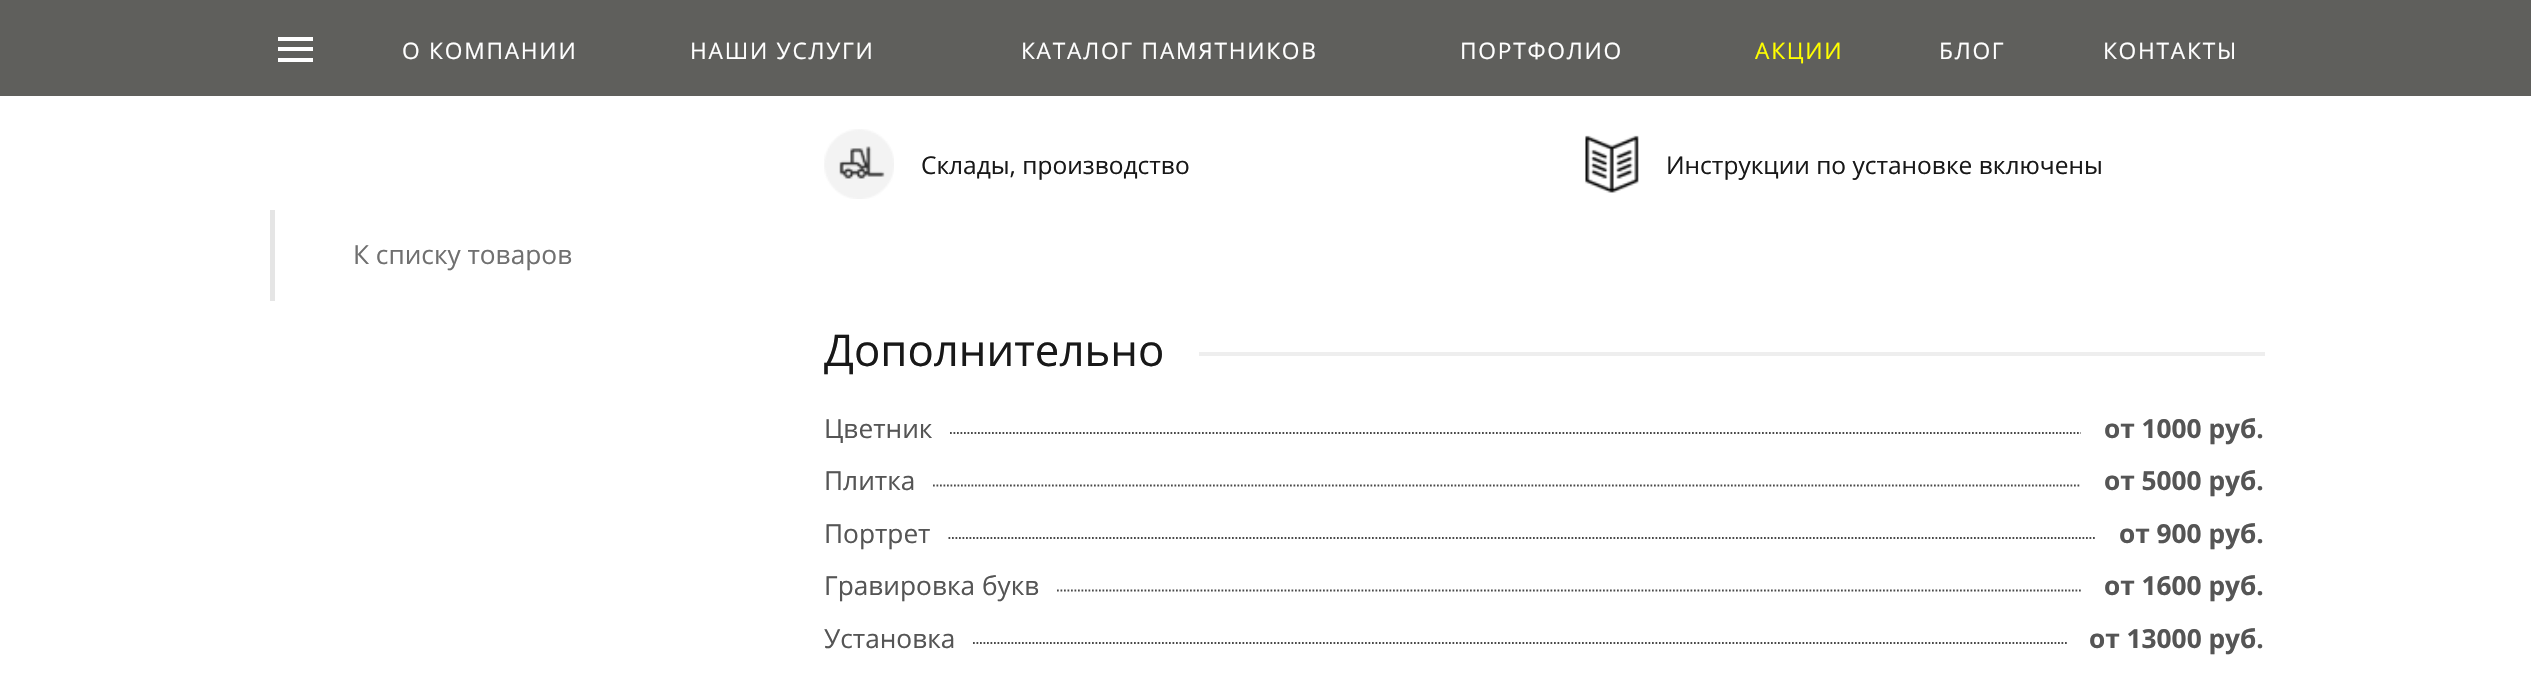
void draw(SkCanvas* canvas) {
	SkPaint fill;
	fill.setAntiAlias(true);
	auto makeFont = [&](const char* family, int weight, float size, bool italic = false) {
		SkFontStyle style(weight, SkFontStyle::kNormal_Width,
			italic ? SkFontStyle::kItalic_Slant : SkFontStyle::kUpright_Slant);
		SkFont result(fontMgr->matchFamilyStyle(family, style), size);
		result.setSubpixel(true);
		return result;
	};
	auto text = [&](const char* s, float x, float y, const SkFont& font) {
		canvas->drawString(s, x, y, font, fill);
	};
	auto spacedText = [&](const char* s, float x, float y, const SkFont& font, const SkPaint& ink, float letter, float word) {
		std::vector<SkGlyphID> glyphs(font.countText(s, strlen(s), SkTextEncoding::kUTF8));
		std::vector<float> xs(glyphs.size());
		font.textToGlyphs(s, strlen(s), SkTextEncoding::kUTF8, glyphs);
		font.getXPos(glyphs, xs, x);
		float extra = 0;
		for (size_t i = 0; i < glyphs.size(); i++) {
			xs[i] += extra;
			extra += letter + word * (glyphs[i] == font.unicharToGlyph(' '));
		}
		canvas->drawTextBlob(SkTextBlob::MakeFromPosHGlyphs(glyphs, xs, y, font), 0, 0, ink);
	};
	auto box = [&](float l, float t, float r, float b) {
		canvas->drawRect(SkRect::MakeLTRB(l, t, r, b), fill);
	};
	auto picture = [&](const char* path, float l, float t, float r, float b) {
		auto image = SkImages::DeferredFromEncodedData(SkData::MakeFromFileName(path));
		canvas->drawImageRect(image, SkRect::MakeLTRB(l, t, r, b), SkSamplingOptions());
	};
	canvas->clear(0xFFFFFFFF);
	fill.setColor(0xFF5F5F5C);
	box(0, 0, 2531, 96);
	fill.setColor(0xFFFFFFFF);
	box(278, 37, 313, 41);
	box(278, 47, 313, 51);
	box(278, 58, 313, 62);
	fill.setColor(0xFFE5E5E5);
	box(270, 210, 275, 301);
	picture("image0.png", 824, 129, 894, 199);
	picture("image1.png", 1585, 135, 1639, 193);
	fill.setColor(0xFFEEEEEE);
	box(1199, 352, 2265, 356);
	fill.setStyle(SkPaint::kStroke_Style);
	fill.setStrokeWidth(1.8f);
	fill.setColor(0xFF494949);
	fill.setPathEffect(SkDashPathEffect::Make({{1.75f, 1.75f}}, 0));
	canvas->drawPath(SkPathBuilder().moveTo(950, 433).lineTo(2081, 433).detach(), fill);
	fill.setPathEffect(nullptr);
	fill.setPathEffect(SkDashPathEffect::Make({{1.75f, 1.75f}}, 0));
	canvas->drawPath(SkPathBuilder().moveTo(933, 485.5f).lineTo(2081, 485.5f).detach(), fill);
	fill.setPathEffect(nullptr);
	fill.setPathEffect(SkDashPathEffect::Make({{1.75f, 1.75f}}, 0));
	canvas->drawPath(SkPathBuilder().moveTo(948.5f, 538).lineTo(2096.5f, 538).detach(), fill);
	fill.setPathEffect(nullptr);
	fill.setPathEffect(SkDashPathEffect::Make({{1.75f, 1.75f}}, 0));
	canvas->drawPath(SkPathBuilder().moveTo(1057, 590.5f).lineTo(2081, 590.5f).detach(), fill);
	fill.setPathEffect(nullptr);
	fill.setPathEffect(SkDashPathEffect::Make({{1.75f, 1.75f}}, 0));
	canvas->drawPath(SkPathBuilder().moveTo(973, 643).lineTo(2067, 643).detach(), fill);
	fill.setPathEffect(nullptr);
	auto font1 = makeFont("Open Sans", 400, 22.75f);
	fill.setStyle(SkPaint::kFill_Style);
	fill.setColor(0xFFFFFFFF);
	spacedText("О КОМПАНИИ", 402, 59, font1, fill, 1.75f, 0);
	spacedText("НАШИ УСЛУГИ", 690, 59, font1, fill, 1.75f, 0);
	spacedText("КАТАЛОГ ПАМЯТНИКОВ", 1021, 59, font1, fill, 1.75f, 0);
	spacedText("ПОРТФОЛИО", 1460, 59, font1, fill, 1.75f, 0);
	fill.setColor(0xFFFFFF00);
	spacedText("АКЦИИ", 1755, 59, font1, fill, 1.75f, 0);
	fill.setColor(0xFFFFFFFF);
	spacedText("БЛОГ", 1939, 59, font1, fill, 1.75f, 0);
	spacedText("КОНТАКТЫ", 2103, 59, font1, fill, 1.75f, 0);
	auto font2 = makeFont("Open Sans", 400, 26.25f);
	fill.setColor(0xFF707070);
	text("К списку товаров", 353, 264, font2);
	auto font3 = makeFont("Open Sans", 400, 24.5f);
	fill.setColor(0xFF181818);
	text("Склады, производство", 921, 174, font3);
	text("Инструкции по установке включены", 1666, 174, font3);
	auto font4 = makeFont("Open Sans", 400, 43.75f);
	text("Дополнительно", 824, 366, font4);
	fill.setColor(0xFF555555);
	text("Цветник", 824, 438, font2);
	auto font5 = makeFont("Open Sans", 700, 26.25f);
	text("от 1000 руб.", 2104, 438, font5);
	text("Плитка", 824, 490, font2);
	text("от 5000 руб.", 2104, 490, font5);
	text("Портрет", 824, 543, font2);
	text("от 900 руб.", 2119, 543, font5);
	text("Гравировка букв", 824, 595, font2);
	text("от 1600 руб.", 2104, 595, font5);
	text("Установка", 824, 648, font2);
	text("от 13000 руб.", 2089, 648, font5);
}
